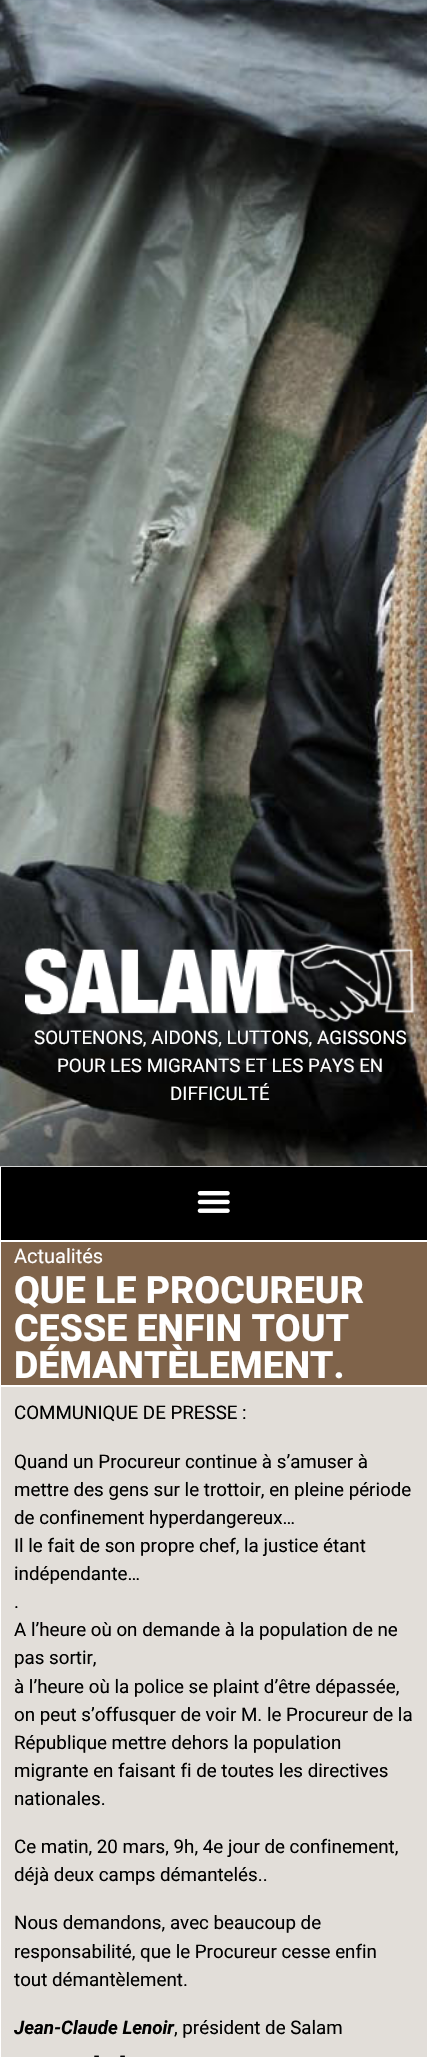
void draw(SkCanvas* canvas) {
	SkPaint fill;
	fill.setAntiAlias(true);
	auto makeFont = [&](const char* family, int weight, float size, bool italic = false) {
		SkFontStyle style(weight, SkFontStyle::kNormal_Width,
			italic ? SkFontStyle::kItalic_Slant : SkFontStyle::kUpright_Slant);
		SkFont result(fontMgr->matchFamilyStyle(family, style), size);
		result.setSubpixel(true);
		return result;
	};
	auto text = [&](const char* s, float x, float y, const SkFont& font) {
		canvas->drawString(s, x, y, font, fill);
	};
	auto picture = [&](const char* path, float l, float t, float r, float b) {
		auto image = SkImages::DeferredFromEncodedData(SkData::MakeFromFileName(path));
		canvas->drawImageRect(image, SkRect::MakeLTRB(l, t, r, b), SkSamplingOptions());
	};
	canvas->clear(0xFF000000);
	fill.setStyle(SkPaint::kStroke_Style);
	fill.setStrokeWidth(1);
	fill.setColor(0xFFFFFFFF);
	canvas->drawRect(SkRect::MakeLTRB(0.5f, 1166.5f, 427.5f, 1240.5f), fill);
	picture("image0.png", 0, 0, 427, 1167);
	picture("image1.png", 25, 942, 415, 1022);
	picture("image2.png", 197, 1191, 230, 1213);
	fill.setStyle(SkPaint::kFill_Style);
	fill.setColor(0xFF7F634A);
	canvas->drawRect(SkRect::MakeLTRB(0.5f, 1241.5f, 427.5f, 1385.5f), fill);
	fill.setStyle(SkPaint::kStroke_Style);
	fill.setColor(0xFFFFFFFF);
	canvas->drawRect(SkRect::MakeLTRB(0.5f, 1241.5f, 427.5f, 1385.5f), fill);
	fill.setStyle(SkPaint::kFill_Style);
	fill.setColor(0xFFE2DED9);
	canvas->drawRect(SkRect::MakeLTRB(0.5f, 1386.5f, 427.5f, 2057.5f), fill);
	fill.setStyle(SkPaint::kStroke_Style);
	fill.setColor(0xFFFFFFFF);
	canvas->drawRect(SkRect::MakeLTRB(0.5f, 1386.5f, 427.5f, 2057.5f), fill);
	auto font1 = makeFont("Roboto", 400, 18.75f);
	fill.setStyle(SkPaint::kFill_Style);
	text("SOUTENONS, AIDONS, LUTTONS, AGISSONS", 34, 1044, font1);
	text("POUR LES MIGRANTS ET LES PAYS EN", 57, 1072, font1);
	text("DIFFICULTÉ", 170, 1100, font1);
	auto font2 = makeFont("Roboto", 400, 20);
	text("Actualités", 14, 1263, font2);
	auto font3 = makeFont("Roboto", 800, 37.5f);
	text("QUE LE PROCUREUR", 14, 1303, font3);
	text("CESSE ENFIN TOUT", 14, 1341, font3);
	text("DÉMANTÈLEMENT.", 14, 1378, font3);
	fill.setColor(0xFF000000);
	text("COMMUNIQUE DE PRESSE :", 14, 1419, font1);
	text("Quand un Procureur continue à s’amuser à", 14, 1468, font1);
	text("mettre des gens sur le trottoir, en pleine période", 14, 1496, font1);
	text("de confinement hyperdangereux…", 14, 1524, font1);
	text("Il le fait de son propre chef, la justice étant", 14, 1552, font1);
	text("indépendante…", 14, 1580, font1);
	text(".", 14, 1608, font1);
	text("A l’heure où on demande à la population de ne", 14, 1636, font1);
	text("pas sortir,", 14, 1664, font1);
	text("à l’heure où la police se plaint d’être dépassée,", 14, 1693, font1);
	text("on peut s’offusquer de voir M. le Procureur de la", 14, 1721, font1);
	text("République mettre dehors la population", 14, 1749, font1);
	text("migrante en faisant fi de toutes les directives", 14, 1777, font1);
	text("nationales.", 14, 1805, font1);
	text("Ce matin, 20 mars, 9h, 4e jour de confinement,", 14, 1853, font1);
	text("déjà deux camps démantelés..", 14, 1881, font1);
	text("Nous demandons, avec beaucoup de", 14, 1929, font1);
	text("responsabilité, que le Procureur cesse enfin", 14, 1958, font1);
	text("tout démantèlement.", 14, 1986, font1);
	auto font4 = makeFont("Roboto", 700, 18.75f, true);
	text("Jean-Claude Lenoir", 14, 2034, font4);
	text(", président de Salam", 174, 2034, font1);
	text("-", 94, 2062, font1);
	text("-", 120, 2062, font1);
}
